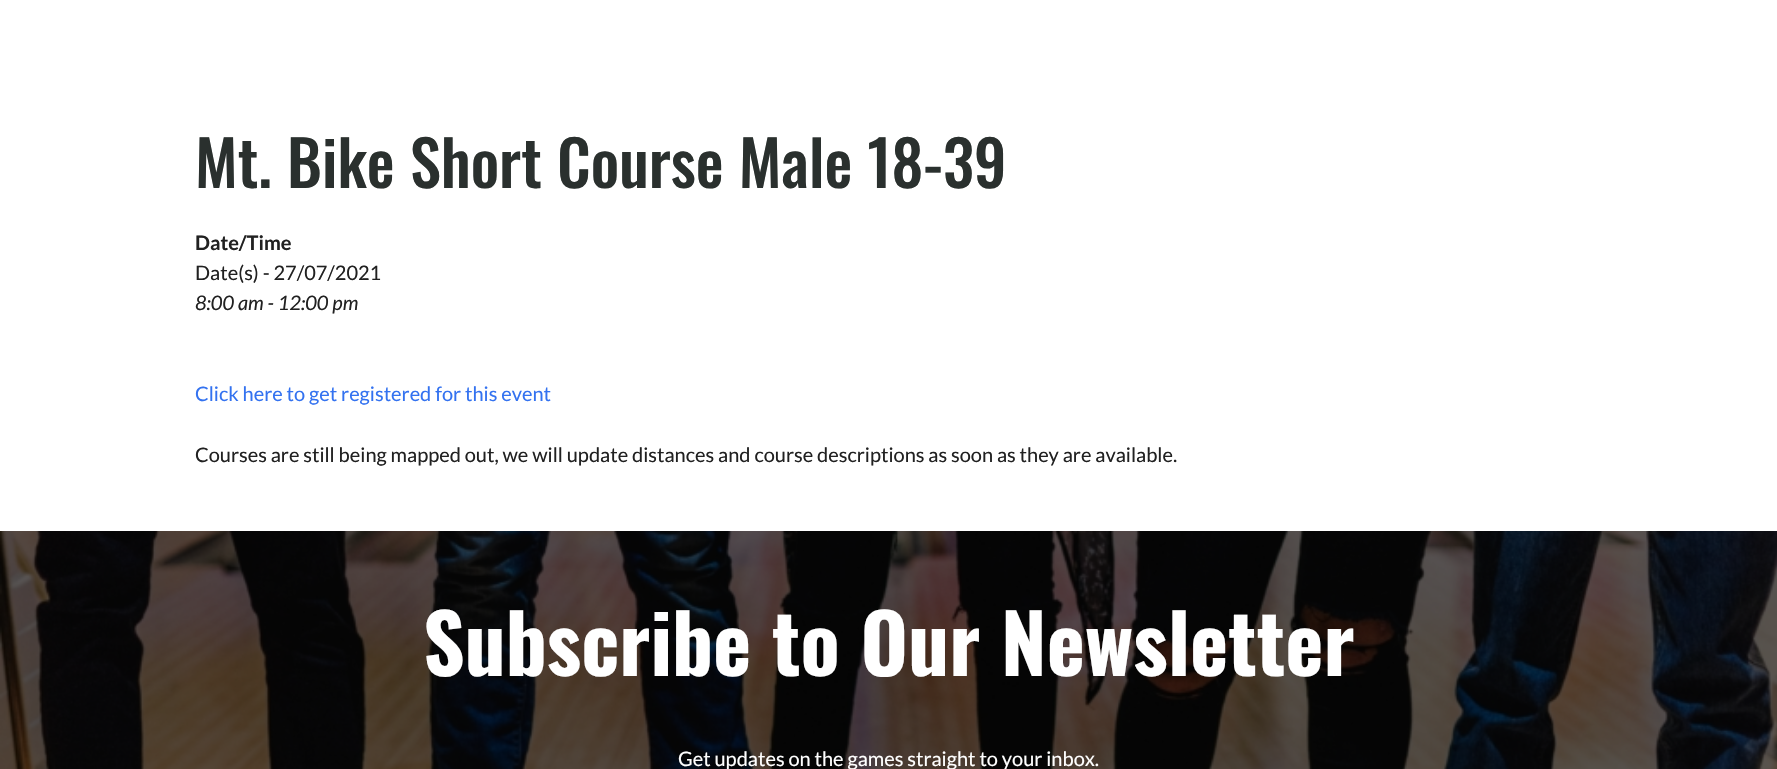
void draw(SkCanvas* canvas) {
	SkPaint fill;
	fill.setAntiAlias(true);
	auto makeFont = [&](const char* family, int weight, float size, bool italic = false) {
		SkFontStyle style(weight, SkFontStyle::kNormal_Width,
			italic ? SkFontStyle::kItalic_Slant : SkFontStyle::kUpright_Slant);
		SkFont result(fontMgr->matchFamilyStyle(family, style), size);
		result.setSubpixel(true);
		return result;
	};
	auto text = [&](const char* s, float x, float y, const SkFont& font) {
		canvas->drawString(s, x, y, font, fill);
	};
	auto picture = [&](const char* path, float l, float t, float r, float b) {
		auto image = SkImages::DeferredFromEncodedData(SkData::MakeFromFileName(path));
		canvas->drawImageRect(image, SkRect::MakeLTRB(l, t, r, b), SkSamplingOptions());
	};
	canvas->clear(0xFFFFFFFF);
	picture("image0.png", 0, 531, 1777, 769);
	auto font1 = makeFont("Oswald", 500, 62.5f);
	fill.setColor(0xFF2A302E);
	text("Mt. Bike Short Course Male 18-39", 195, 188, font1);
	auto font2 = makeFont("Lato", 700, 20);
	fill.setColor(0xFF212121);
	text("Date/Time", 195, 250, font2);
	auto font3 = makeFont("Lato", 400, 20);
	text("Date(s) - 27/07/2021", 195, 280, font3);
	auto font4 = makeFont("Lato", 400, 20, true);
	text("8:00 am - 12:00 pm", 195, 310, font4);
	fill.setColor(0xFF3372F0);
	text("Click here to get registered for this event", 195, 401, font3);
	fill.setColor(0xFF212121);
	text("Courses are still being mapped out, we will update distances and course descriptions as soon as they are available.", 195, 462, font3);
	auto font5 = makeFont("Oswald", 700, 81.25f);
	fill.setColor(0xFFFFFFFF);
	text("Subscribe to Our Newsletter", 423, 676, font5);
	text("Get updates on the games straight to your inbox.", 678, 766, font3);
}
